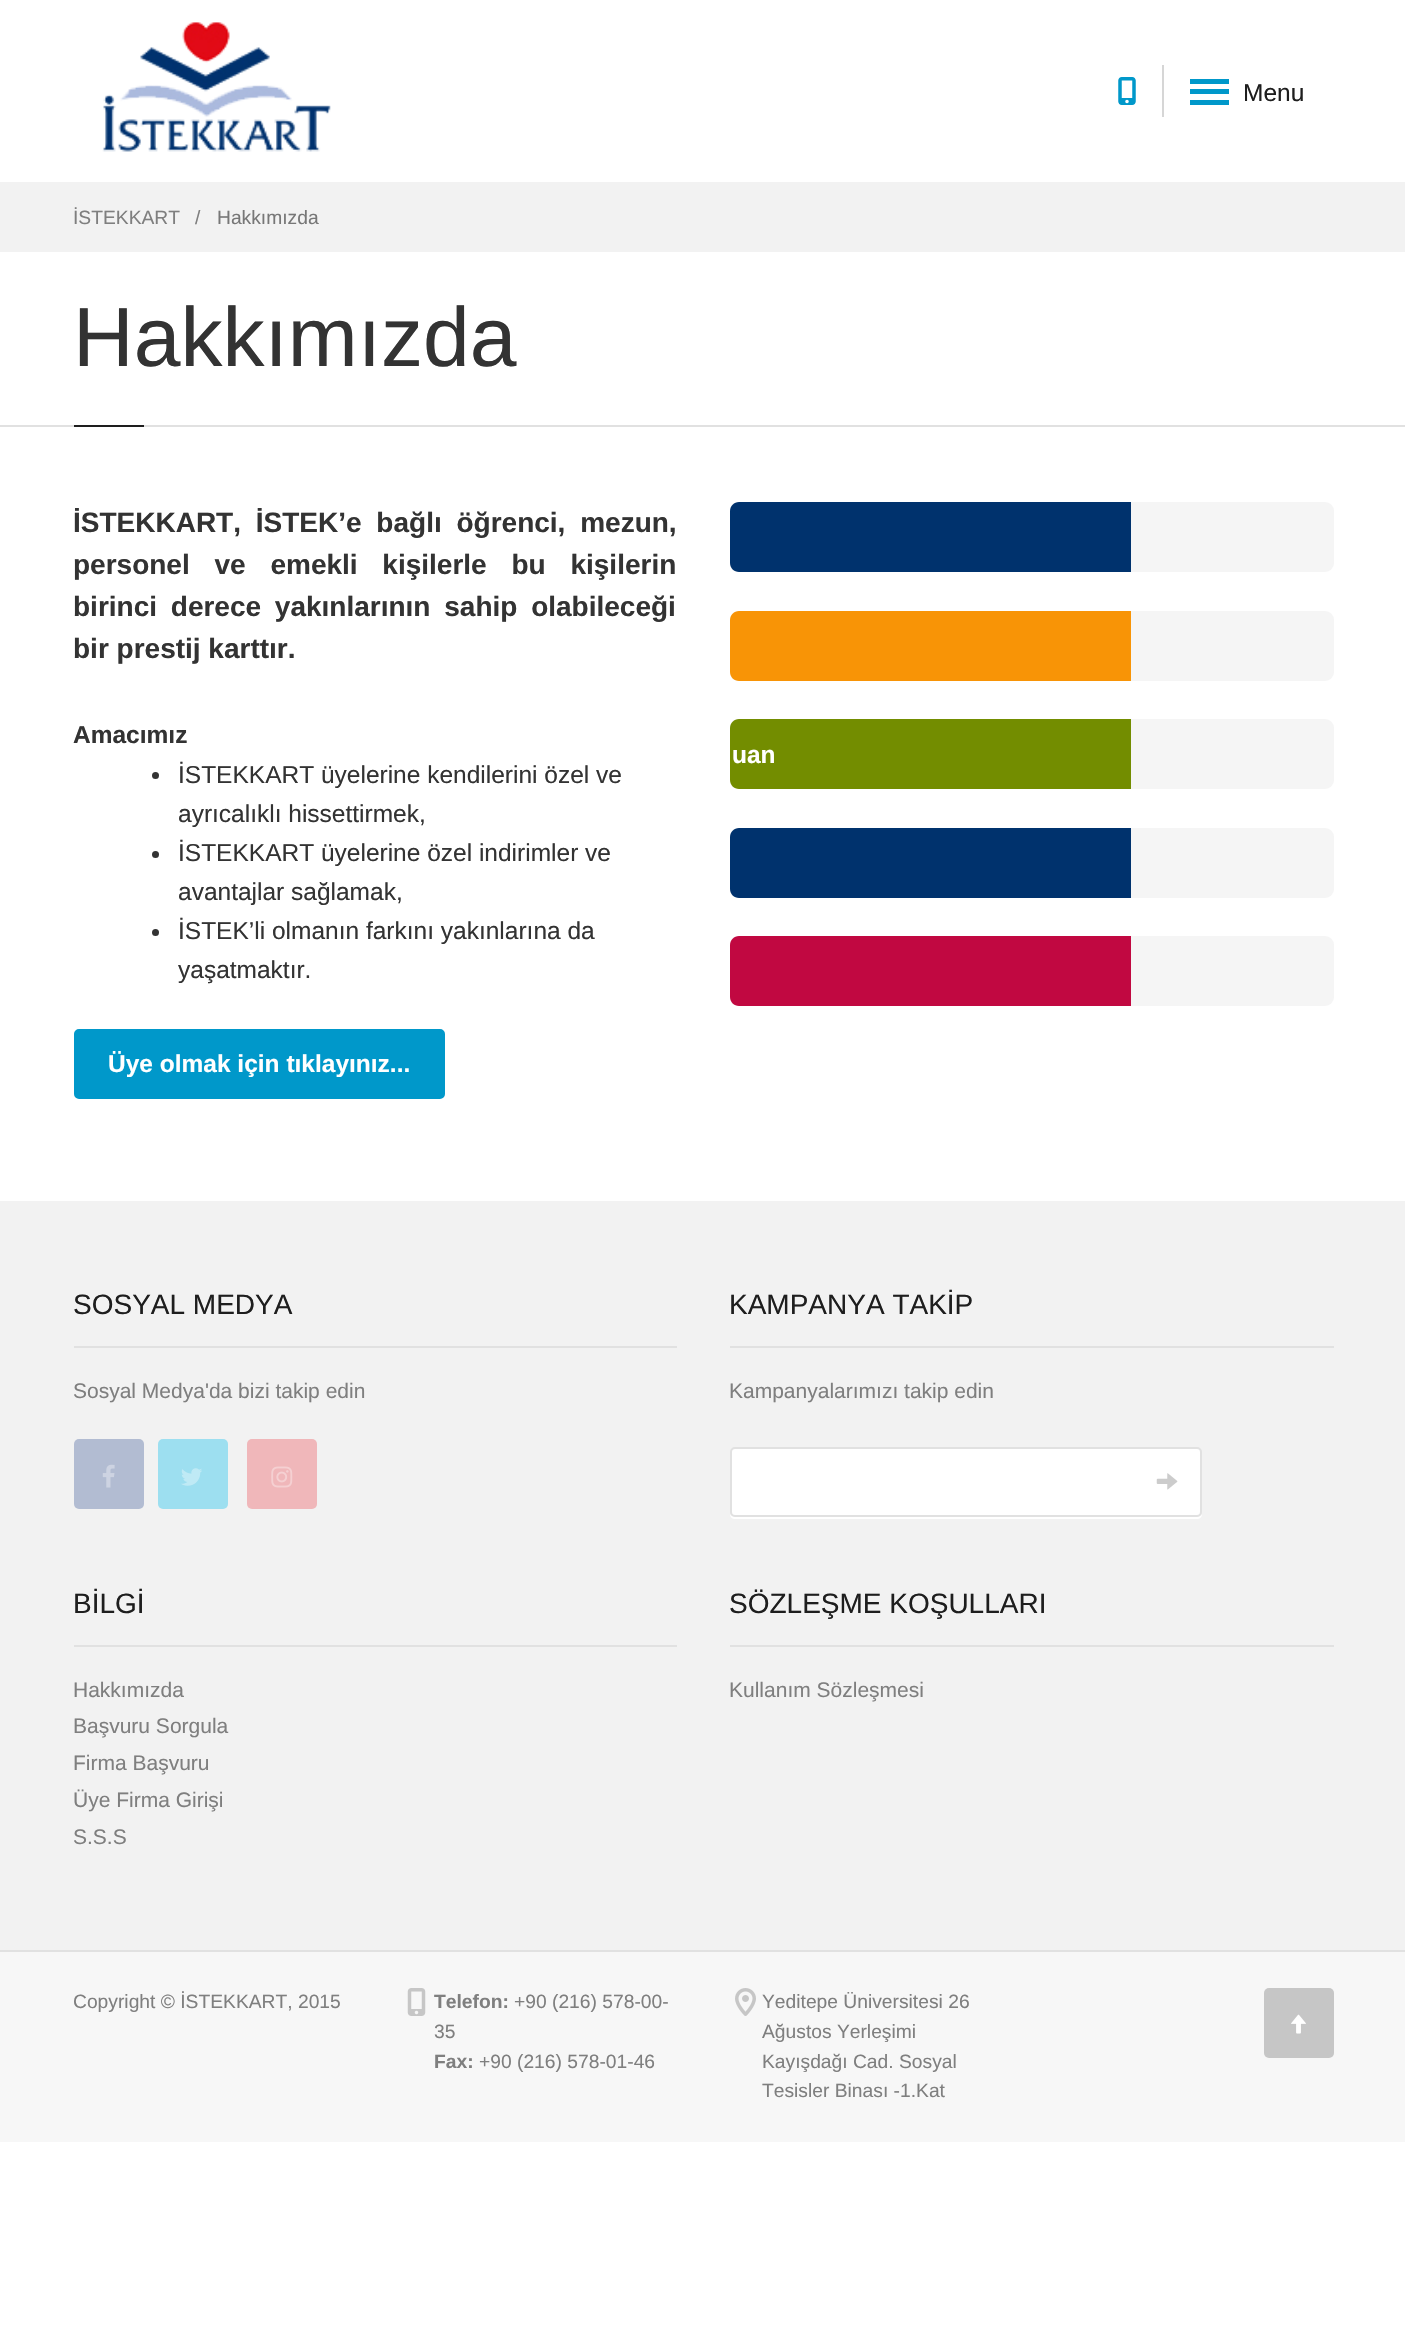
void draw(SkCanvas* canvas) {
	SkPaint fill;
	fill.setAntiAlias(true);
	auto makeFont = [&](const char* family, int weight, float size, bool italic = false) {
		SkFontStyle style(weight, SkFontStyle::kNormal_Width,
			italic ? SkFontStyle::kItalic_Slant : SkFontStyle::kUpright_Slant);
		SkFont result(fontMgr->matchFamilyStyle(family, style), size);
		result.setSubpixel(true);
		return result;
	};
	auto text = [&](const char* s, float x, float y, const SkFont& font) {
		canvas->drawString(s, x, y, font, fill);
	};
	auto spacedText = [&](const char* s, float x, float y, const SkFont& font, const SkPaint& ink, float letter, float word) {
		std::vector<SkGlyphID> glyphs(font.countText(s, strlen(s), SkTextEncoding::kUTF8));
		std::vector<float> xs(glyphs.size());
		font.textToGlyphs(s, strlen(s), SkTextEncoding::kUTF8, glyphs);
		font.getXPos(glyphs, xs, x);
		float extra = 0;
		for (size_t i = 0; i < glyphs.size(); i++) {
			xs[i] += extra;
			extra += letter + word * (glyphs[i] == font.unicharToGlyph(' '));
		}
		canvas->drawTextBlob(SkTextBlob::MakeFromPosHGlyphs(glyphs, xs, y, font), 0, 0, ink);
	};
	auto box = [&](float l, float t, float r, float b) {
		canvas->drawRect(SkRect::MakeLTRB(l, t, r, b), fill);
	};
	auto roundBox = [&](float l, float t, float r, float b, float radius) {
		canvas->drawRoundRect(SkRect::MakeLTRB(l, t, r, b), radius, radius, fill);
	};
	auto picture = [&](const char* path, float l, float t, float r, float b) {
		auto image = SkImages::DeferredFromEncodedData(SkData::MakeFromFileName(path));
		canvas->drawImageRect(image, SkRect::MakeLTRB(l, t, r, b), SkSamplingOptions());
	};
	canvas->clear(0xFFFFFFFF);
	picture("image0.png", 102, 22, 331, 152);
	picture("image1.png", 1118, 77, 1136, 105);
	fill.setColor(0xFFD6D6D6);
	box(1162, 65, 1164, 117);
	fill.setColor(0xFF0098CA);
	box(1190, 79, 1229, 84);
	box(1190, 89, 1229, 94);
	box(1190, 100, 1229, 105);
	fill.setColor(0xFFF2F2F2);
	box(0, 182, 1405, 252);
	fill.setColor(0xFFE1E1E1);
	box(0, 425, 1405, 427);
	fill.setColor(0xFF1E1E1E);
	box(74, 425, 144, 427);
	fill.setColor(0xFF333333);
	canvas->drawCircle(155.5f, 775.5f, 3.5f, fill);
	canvas->drawCircle(155.5f, 854.5f, 3.5f, fill);
	canvas->drawCircle(155.5f, 932.5f, 3.5f, fill);
	fill.setColor(0xFF0098CA);
	canvas->drawRoundRect(SkRect::MakeLTRB(75, 1030, 444, 1098), 4, 4, fill);
	fill.setStyle(SkPaint::kStroke_Style);
	fill.setStrokeWidth(2);
	canvas->drawRoundRect(SkRect::MakeLTRB(75, 1030, 444, 1098), 4, 4, fill);
	fill.setStyle(SkPaint::kFill_Style);
	fill.setColor(0xFFF5F5F5);
	roundBox(730, 502, 1334, 572, 9);
	fill.setColor(0xFF00326D);
	canvas->drawPath(SkPathBuilder().moveTo(739, 502).lineTo(1131, 502).lineTo(1131, 572).lineTo(739, 572).cubicTo(734, 572, 730, 568, 730, 563).lineTo(730, 511).cubicTo(730, 506, 734, 502, 739, 502).close().detach(), fill);
	fill.setColor(0xFFF5F5F5);
	roundBox(730, 611, 1334, 681, 9);
	fill.setColor(0xFFF89406);
	canvas->drawPath(SkPathBuilder().moveTo(739, 611).lineTo(1131, 611).lineTo(1131, 681).lineTo(739, 681).cubicTo(734, 681, 730, 677, 730, 672).lineTo(730, 620).cubicTo(730, 615, 734, 611, 739, 611).close().detach(), fill);
	fill.setColor(0xFFF5F5F5);
	roundBox(730, 719, 1334, 789, 9);
	fill.setColor(0xFF738D00);
	canvas->drawPath(SkPathBuilder().moveTo(739, 719).lineTo(1131, 719).lineTo(1131, 789).lineTo(739, 789).cubicTo(734, 789, 730, 785, 730, 780).lineTo(730, 728).cubicTo(730, 723, 734, 719, 739, 719).close().detach(), fill);
	fill.setColor(0xFFF5F5F5);
	roundBox(730, 828, 1334, 898, 9);
	fill.setColor(0xFF00326D);
	canvas->drawPath(SkPathBuilder().moveTo(739, 828).lineTo(1131, 828).lineTo(1131, 898).lineTo(739, 898).cubicTo(734, 898, 730, 894, 730, 889).lineTo(730, 837).cubicTo(730, 832, 734, 828, 739, 828).close().detach(), fill);
	fill.setColor(0xFFF5F5F5);
	roundBox(730, 936, 1334, 1006, 9);
	fill.setColor(0xFFC10841);
	canvas->drawPath(SkPathBuilder().moveTo(739, 936).lineTo(1131, 936).lineTo(1131, 1006).lineTo(739, 1006).cubicTo(734, 1006, 730, 1002, 730, 997).lineTo(730, 945).cubicTo(730, 940, 734, 936, 739, 936).close().detach(), fill);
	fill.setColor(0xFFF2F2F2);
	box(0, 1201, 1405, 1950);
	fill.setColor(0xFFE1E1E1);
	box(74, 1346, 677, 1348);
	fill.setColor(0xFFB2BCD2);
	roundBox(74, 1439, 144, 1509, 5);
	picture("image2.png", 102, 1464, 115, 1488);
	fill.setColor(0xFF9DDFF0);
	roundBox(158, 1439, 228, 1509, 5);
	picture("image3.png", 181, 1468, 202, 1486);
	fill.setColor(0xFFF0B7BA);
	roundBox(247, 1439, 317, 1509, 5);
	picture("image4.png", 271, 1466, 293, 1488);
	fill.setColor(0xFFE1E1E1);
	box(730, 1346, 1334, 1348);
	fill.setColor(0xFFFFFFFF);
	canvas->drawPath(SkPathBuilder().moveTo(730, 1514).cubicTo(730, 1517, 732, 1519, 735, 1519).lineTo(1197, 1519).cubicTo(1200, 1519, 1202, 1517, 1202, 1514).cubicTo(1201, 1516, 1199, 1517, 1197, 1517).lineTo(735, 1517).cubicTo(733, 1517, 731, 1516, 730, 1514).close().detach(), fill);
	canvas->drawRoundRect(SkRect::MakeLTRB(731, 1448, 1201, 1516), 4, 4, fill);
	fill.setStyle(SkPaint::kStroke_Style);
	fill.setColor(0xFFE1E1E1);
	canvas->drawRoundRect(SkRect::MakeLTRB(731, 1448, 1201, 1516), 4, 4, fill);
	picture("image5.png", 1156, 1473, 1178, 1490);
	fill.setStyle(SkPaint::kFill_Style);
	box(74, 1645, 677, 1647);
	box(730, 1645, 1334, 1647);
	fill.setColor(0xFFF7F7F7);
	box(0, 1952, 1405, 2142);
	fill.setColor(0xFFE1E1E1);
	box(0, 1950, 1405, 1952);
	picture("image6.png", 407, 1988, 426, 2016);
	picture("image7.png", 735, 1988, 756, 2016);
	fill.setColor(0xFFC6C6C6);
	roundBox(1264, 1988, 1334, 2058, 5);
	picture("image8.png", 1291, 2014, 1306, 2034);
	auto font1 = makeFont("Liberation Sans", 400, 24.5f);
	fill.setColor(0xFF1E1E1E);
	text("Menu", 1243, 101, font1);
	auto font2 = makeFont("Liberation Sans", 400, 19.25f);
	fill.setColor(0xFF7F7F7F);
	text("İSTEKKART", 73, 224, font2);
	text("/", 195, 224, font2);
	fill.setColor(0xFF777777);
	text("Hakkımızda", 217, 224, font2);
	auto font3 = makeFont("Liberation Sans", 400, 84);
	fill.setColor(0xFF333333);
	text("Hakkımızda", 73, 366, font3);
	auto font4 = makeFont("Liberation Sans", 700, 28);
	spacedText("İSTEKKART, İSTEK’e bağlı öğrenci, mezun,", 73, 532, font4, fill, 0, 7);
	spacedText("personel ve emekli kişilerle bu kişilerin", 73, 574, font4, fill, 0, 17);
	spacedText("birinci derece yakınlarının sahip olabileceği", 73, 616, font4, fill, 0, 6);
	text("bir prestij karttır.", 73, 658, font4);
	auto font5 = makeFont("Liberation Sans", 700, 24.5f);
	text("Amacımız", 73, 743, font5);
	text("İSTEKKART üyelerine kendilerini özel ve", 178, 783, font1);
	text("ayrıcalıklı hissettirmek,", 178, 822, font1);
	text("İSTEKKART üyelerine özel indirimler ve", 178, 861, font1);
	text("avantajlar sağlamak,", 178, 900, font1);
	text("İSTEK’li olmanın farkını yakınlarına da", 178, 939, font1);
	text("yaşatmaktır.", 178, 978, font1);
	fill.setColor(0xFFFFFFFF);
	text("Üye olmak için tıklayınız...", 108, 1072, font5);
	text("uan", 732, 763, font5);
	auto font6 = makeFont("Liberation Sans", 400, 28);
	fill.setColor(0xFF1E1E1E);
	text("SOSYAL MEDYA", 73, 1314, font6);
	auto font7 = makeFont("Liberation Sans", 400, 21);
	fill.setColor(0xFF7F7F7F);
	text("Sosyal Medya'da bizi takip edin", 73, 1398, font7);
	fill.setColor(0xFF1E1E1E);
	text("KAMPANYA TAKİP", 729, 1314, font6);
	fill.setColor(0xFF7F7F7F);
	text("Kampanyalarımızı takip edin", 729, 1398, font7);
	fill.setColor(0xFF1E1E1E);
	text("BİLGİ", 73, 1613, font6);
	fill.setColor(0xFF7F7F7F);
	text("Hakkımızda", 73, 1697, font7);
	text("Başvuru Sorgula", 73, 1733, font7);
	text("Firma Başvuru", 73, 1770, font7);
	text("Üye Firma Girişi", 73, 1807, font7);
	text("S.S.S", 73, 1844, font7);
	fill.setColor(0xFF1E1E1E);
	text("SÖZLEŞME KOŞULLARI", 729, 1613, font6);
	fill.setColor(0xFF7F7F7F);
	text("Kullanım Sözleşmesi", 729, 1697, font7);
	text("Copyright © İSTEKKART, 2015", 73, 2008, font2);
	auto font8 = makeFont("Liberation Sans", 700, 19.25f);
	text("Telefon:", 434, 2008, font8);
	text("+90 (216) 578-00-", 514, 2008, font2);
	text("35", 434, 2038, font2);
	text("Fax:", 434, 2068, font8);
	text("+90 (216) 578-01-46", 479, 2068, font2);
	text("Yeditepe Üniversitesi 26", 762, 2008, font2);
	text("Ağustos Yerleşimi", 762, 2038, font2);
	text("Kayışdağı Cad. Sosyal", 762, 2068, font2);
	text("Tesisler Binası -1.Kat", 762, 2097, font2);
}
